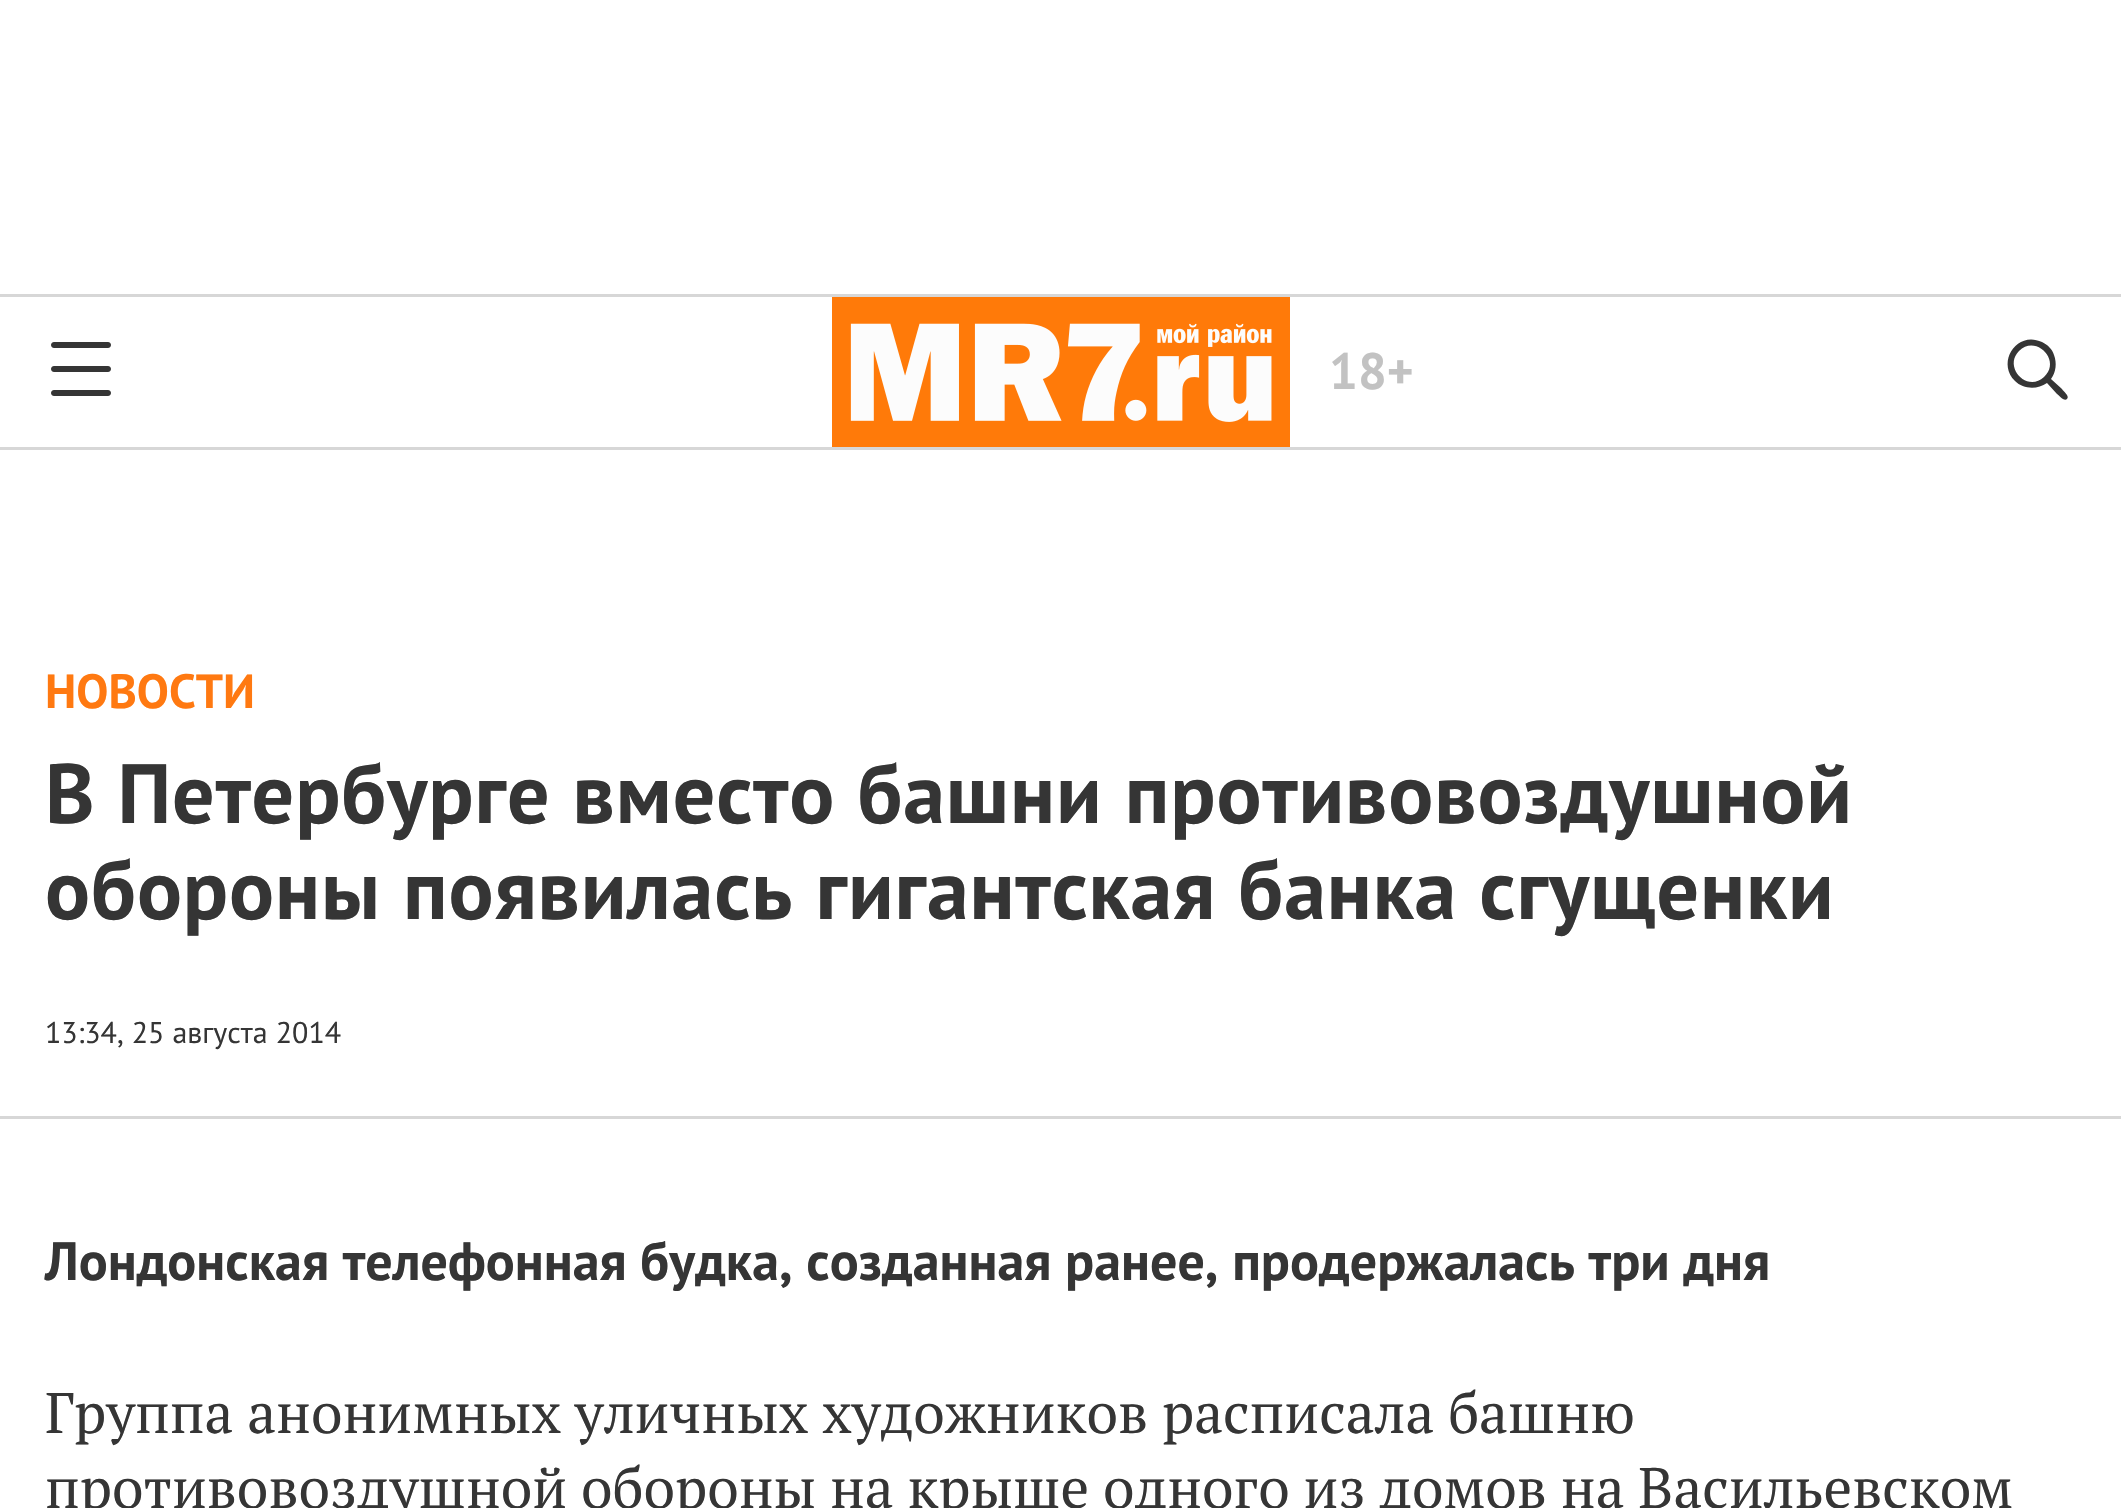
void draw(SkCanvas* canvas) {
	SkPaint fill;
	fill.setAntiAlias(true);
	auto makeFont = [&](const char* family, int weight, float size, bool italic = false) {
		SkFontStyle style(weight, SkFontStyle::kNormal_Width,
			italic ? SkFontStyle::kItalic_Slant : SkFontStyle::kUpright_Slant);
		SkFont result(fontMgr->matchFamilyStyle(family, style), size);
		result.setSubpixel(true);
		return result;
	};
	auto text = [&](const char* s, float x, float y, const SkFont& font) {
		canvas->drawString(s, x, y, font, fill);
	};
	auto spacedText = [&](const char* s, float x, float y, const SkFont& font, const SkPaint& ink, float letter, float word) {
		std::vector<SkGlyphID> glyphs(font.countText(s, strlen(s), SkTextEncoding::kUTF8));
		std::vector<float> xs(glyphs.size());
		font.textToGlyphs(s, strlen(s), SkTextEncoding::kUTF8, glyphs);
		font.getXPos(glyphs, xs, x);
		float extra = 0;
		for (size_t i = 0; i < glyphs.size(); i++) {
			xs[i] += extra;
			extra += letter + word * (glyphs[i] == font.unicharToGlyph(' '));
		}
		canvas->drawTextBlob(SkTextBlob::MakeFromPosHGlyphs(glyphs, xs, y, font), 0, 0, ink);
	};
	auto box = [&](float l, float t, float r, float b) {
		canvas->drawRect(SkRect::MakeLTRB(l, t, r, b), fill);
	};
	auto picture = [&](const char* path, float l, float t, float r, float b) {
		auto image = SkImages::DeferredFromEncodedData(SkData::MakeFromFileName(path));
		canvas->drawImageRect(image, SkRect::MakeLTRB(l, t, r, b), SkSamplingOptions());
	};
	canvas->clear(0xFFFFFFFF);
	fill.setColor(0xFFD7D7D7);
	box(0, 294, 2121, 297);
	box(0, 447, 2121, 450);
	picture("image0.png", 51, 342, 111, 396);
	picture("image1.png", 832, 297, 1290, 447);
	fill.setColor(0xFF353535);
	canvas->drawPath(SkPathBuilder().moveTo(2015, 381).cubicTo(2023, 389, 2037, 390, 2047, 383).lineTo(2057, 394).cubicTo(2059, 395, 2064, 402, 2067, 399).cubicTo(2070, 396, 2063, 391, 2062, 389).lineTo(2051, 379).cubicTo(2056, 372, 2057, 363, 2054, 355).cubicTo(2052, 349, 2048, 345, 2042, 342).cubicTo(2017, 330, 1996, 362, 2015, 381).close().moveTo(2019, 351).cubicTo(2036, 334, 2062, 361, 2044, 377).cubicTo(2027, 393, 2003, 367, 2019, 351).close().detach(), fill);
	fill.setColor(0xFFD7D7D7);
	box(0, 1116, 2121, 1119);
	auto font1 = makeFont("PT Sans", 700, 51);
	fill.setColor(0xFFC2C2C2);
	text("18+", 1329, 389, font1);
	auto font2 = makeFont("PT Sans", 700, 48);
	fill.setColor(0xFFFF7911);
	text("НОВОСТИ", 45, 708, font2);
	auto font3 = makeFont("PT Sans", 700, 84);
	fill.setColor(0xFF353535);
	spacedText("В Петербурге вместо башни противовоздушной", 45, 823, font3, fill, 0.85f, 0);
	spacedText("обороны появилась гигантская банка сгущенки", 45, 919, font3, fill, 0.85f, 0);
	auto font4 = makeFont("PT Sans", 400, 30);
	text("13:34, 25 августа 2014", 45, 1043, font4);
	auto font5 = makeFont("PT Sans", 700, 54);
	text("Лондонская телефонная будка, созданная ранее, продержалась три дня", 45, 1280, font5);
	auto font6 = makeFont("PT Serif", 400, 57);
	text("Группа анонимных уличных художников расписала башню", 45, 1433, font6);
	text("противовоздушной обороны на крыше одного из домов на Васильевском", 45, 1508, font6);
}
